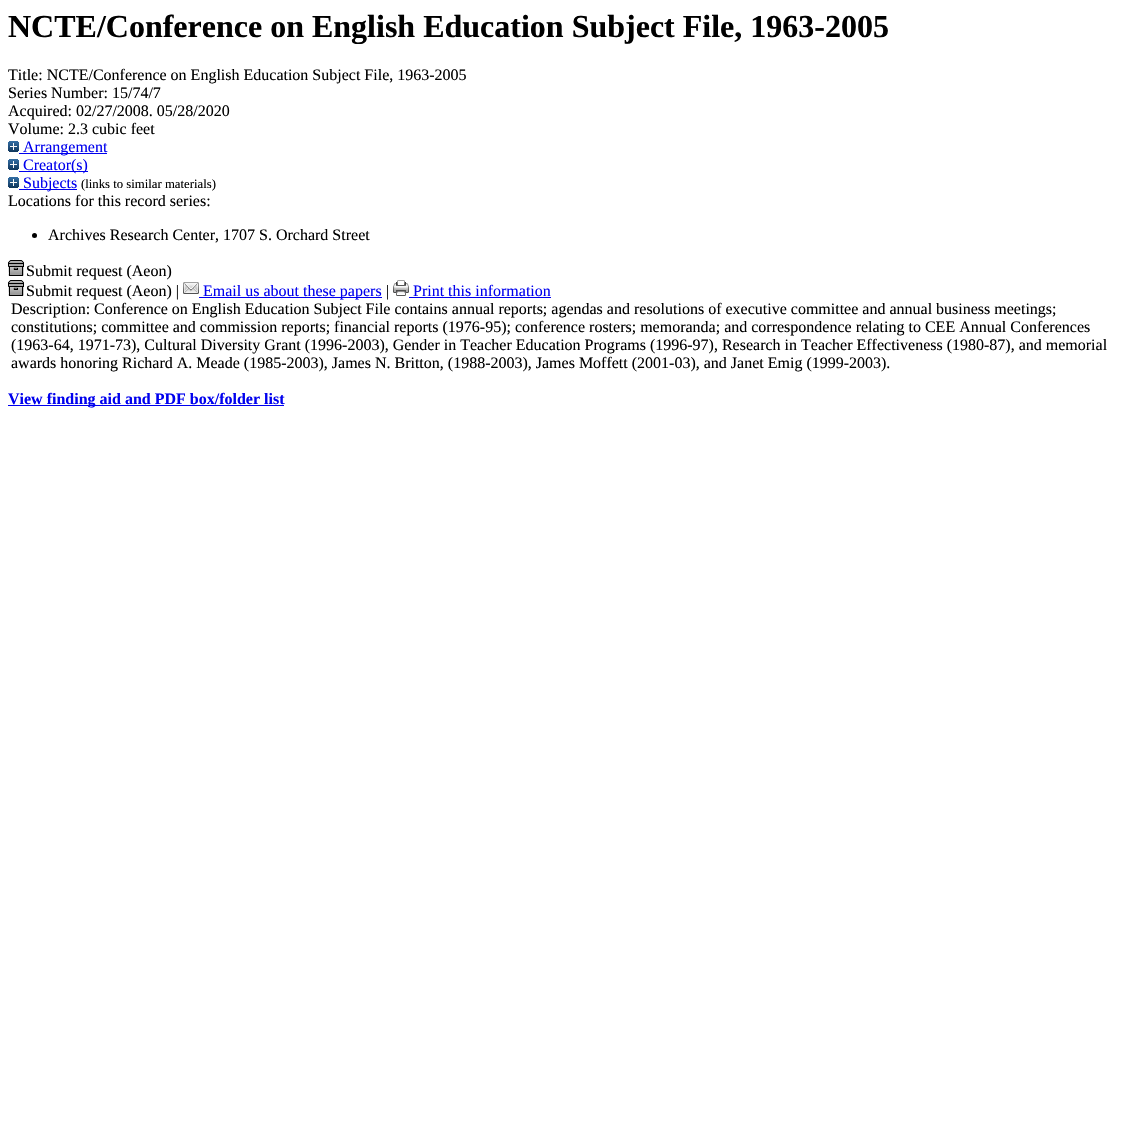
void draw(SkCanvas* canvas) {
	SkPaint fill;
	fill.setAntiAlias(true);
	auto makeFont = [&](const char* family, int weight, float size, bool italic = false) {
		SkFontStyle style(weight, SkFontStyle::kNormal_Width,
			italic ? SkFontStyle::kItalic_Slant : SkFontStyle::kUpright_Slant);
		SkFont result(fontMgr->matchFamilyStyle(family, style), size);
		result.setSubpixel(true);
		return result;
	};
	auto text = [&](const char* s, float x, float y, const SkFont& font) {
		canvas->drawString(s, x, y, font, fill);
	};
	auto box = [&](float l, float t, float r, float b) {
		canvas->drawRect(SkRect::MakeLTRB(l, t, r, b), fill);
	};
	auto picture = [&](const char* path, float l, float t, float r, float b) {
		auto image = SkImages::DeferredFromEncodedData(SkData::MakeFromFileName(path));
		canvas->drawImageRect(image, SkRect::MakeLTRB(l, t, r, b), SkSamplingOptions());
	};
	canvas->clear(0xFFFFFFFF);
	picture("image0.png", 8, 141, 19, 152);
	fill.setColor(0xFF0000EE);
	box(19, 153, 107, 154);
	picture("image0.png", 8, 159, 19, 170);
	box(19, 171, 88, 172);
	picture("image0.png", 8, 177, 19, 188);
	box(19, 189, 77, 190);
	fill.setColor(0xFF000000);
	canvas->drawCircle(34.5f, 235.5f, 2.5f, fill);
	picture("image1.png", 8, 260, 24, 276);
	picture("image1.png", 8, 280, 24, 296);
	picture("image2.png", 183, 282, 199, 294);
	fill.setColor(0xFF0000EE);
	box(199, 297, 382, 298);
	picture("image3.png", 393, 280, 409, 296);
	box(409, 297, 551, 298);
	box(8, 405, 284, 406);
	auto font1 = makeFont("Liberation Serif", 700, 32);
	fill.setColor(0xFF000000);
	text("NCTE/Conference on English Education Subject File, 1963-2005", 8, 37, font1);
	auto font2 = makeFont("Liberation Serif", 400, 16);
	text("Title: NCTE/Conference on English Education Subject File, 1963-2005", 8, 80, font2);
	text("Series Number: 15/74/7", 8, 98, font2);
	text("Acquired: 02/27/2008. 05/28/2020", 8, 116, font2);
	text("Volume: 2.3 cubic feet", 8, 134, font2);
	fill.setColor(0xFF0000EE);
	text("Arrangement", 23, 152, font2);
	text("Creator(s)", 23, 170, font2);
	text("Subjects", 23, 188, font2);
	auto font3 = makeFont("Liberation Serif", 400, 12.75f);
	fill.setColor(0xFF000000);
	text("(links to similar materials)", 81, 188, font3);
	text("Locations for this record series:", 8, 206, font2);
	text("Archives Research Center, 1707 S. Orchard Street", 48, 240, font2);
	text("Submit request (Aeon)", 26, 276, font2);
	text("Submit request (Aeon) |", 26, 296, font2);
	fill.setColor(0xFF0000EE);
	text("Email us about these papers", 203, 296, font2);
	fill.setColor(0xFF000000);
	text("|", 386, 296, font2);
	fill.setColor(0xFF0000EE);
	text("Print this information", 413, 296, font2);
	fill.setColor(0xFF000000);
	text("Description: Conference on English Education Subject File contains annual reports; agendas and resolutions of executive committee and annual business meetings;", 11, 314, font2);
	text("constitutions; committee and commission reports; financial reports (1976-95); conference rosters; memoranda; and correspondence relating to CEE Annual Conferences", 11, 332, font2);
	text("(1963-64, 1971-73), Cultural Diversity Grant (1996-2003), Gender in Teacher Education Programs (1996-97), Research in Teacher Effectiveness (1980-87), and memorial", 11, 350, font2);
	text("awards honoring Richard A. Meade (1985-2003), James N. Britton, (1988-2003), James Moffett (2001-03), and Janet Emig (1999-2003).", 11, 368, font2);
	auto font4 = makeFont("Liberation Serif", 700, 16);
	fill.setColor(0xFF0000EE);
	text("View finding aid and PDF box/folder list", 8, 404, font4);
}
